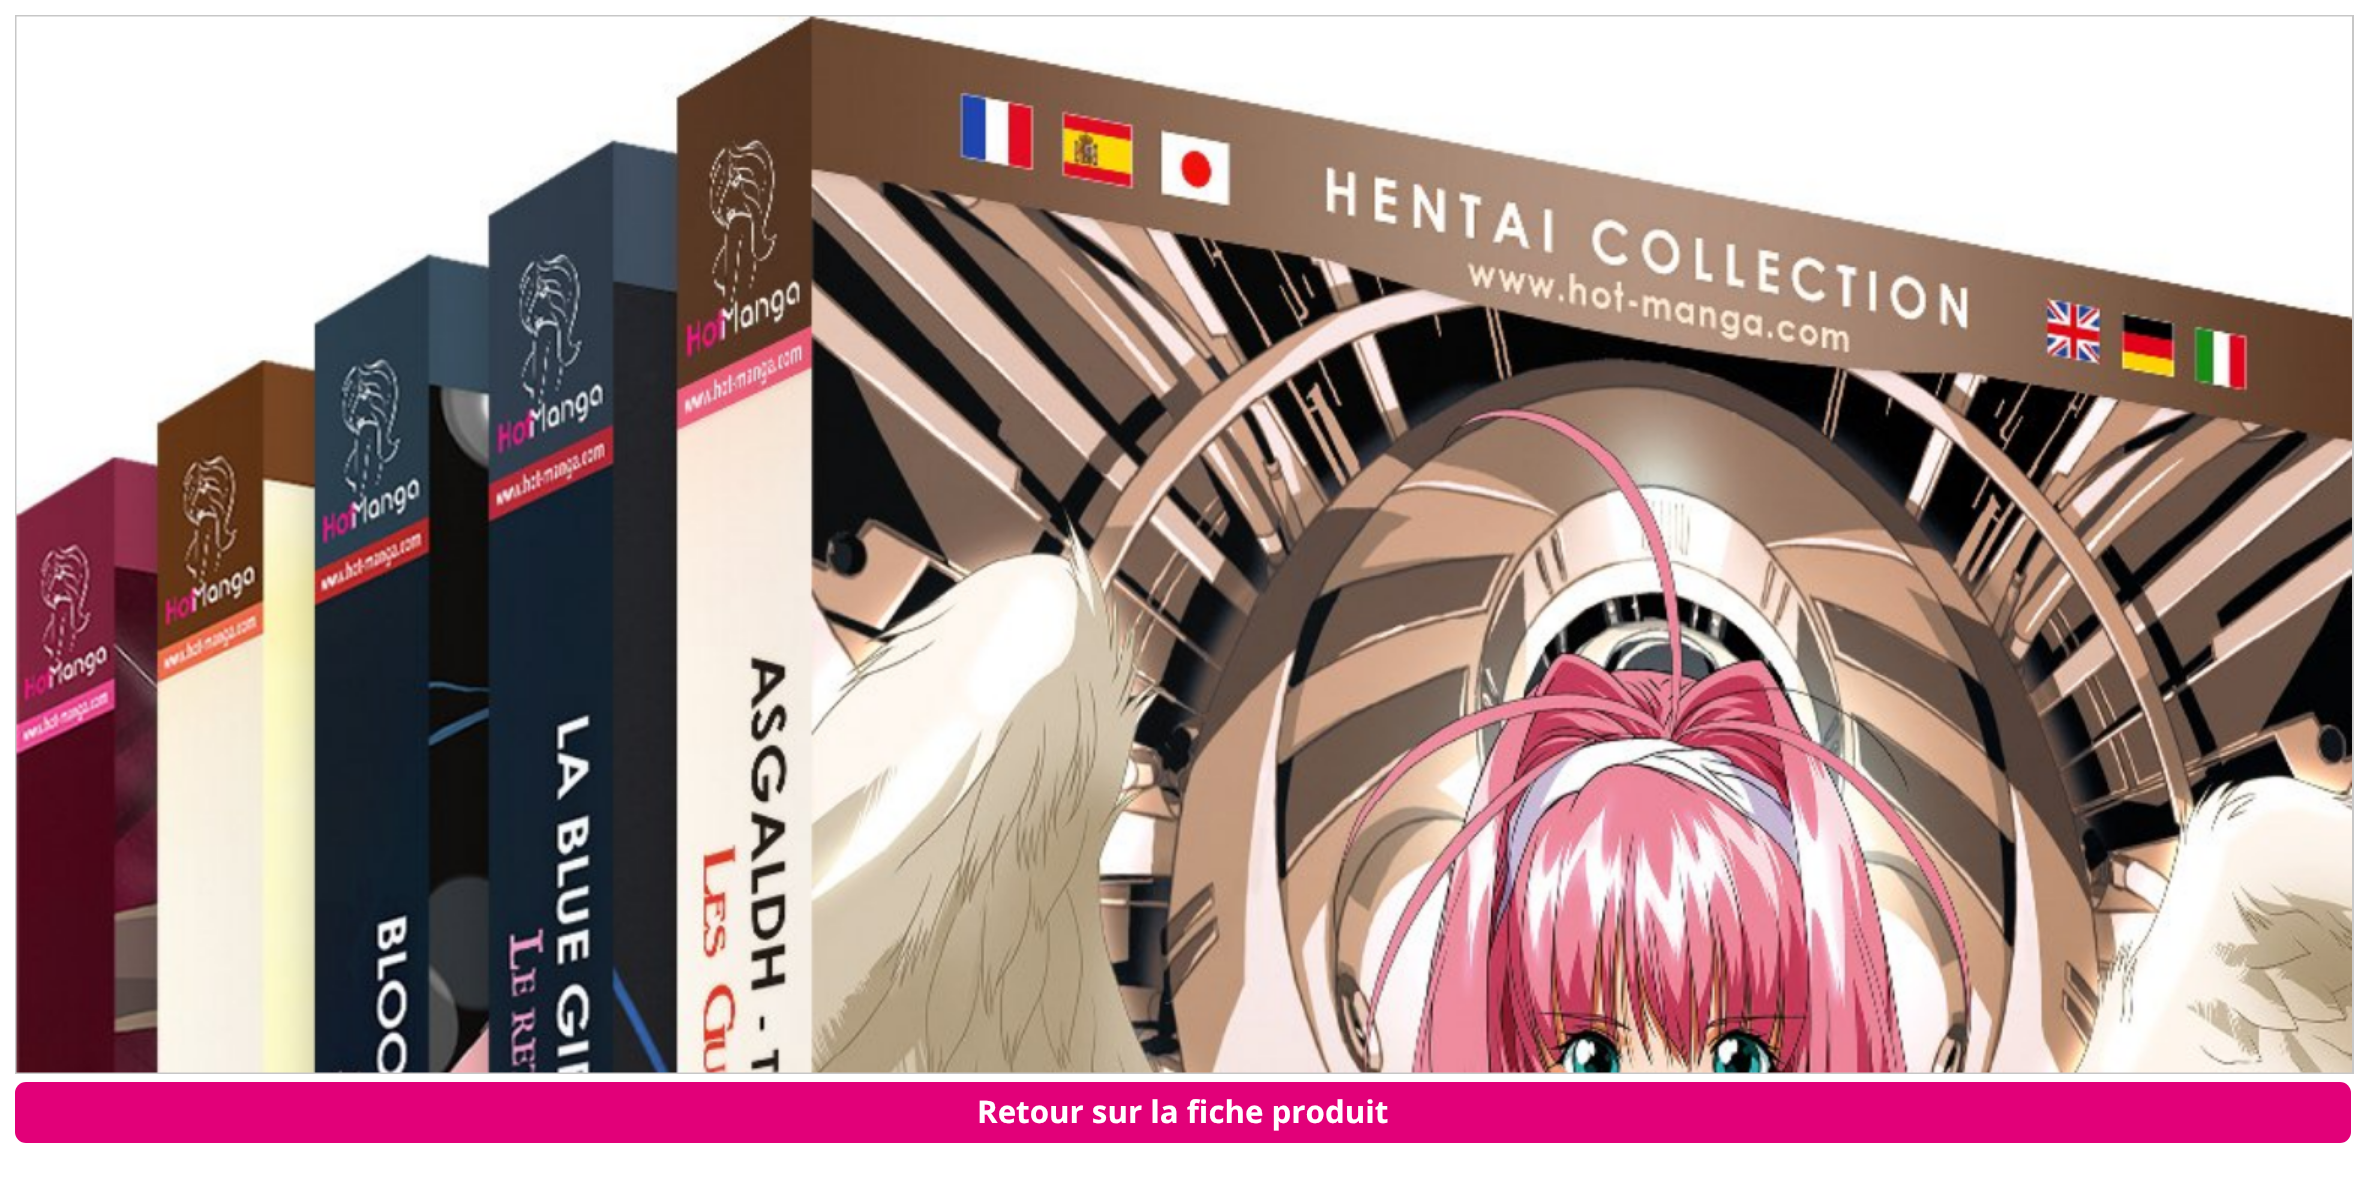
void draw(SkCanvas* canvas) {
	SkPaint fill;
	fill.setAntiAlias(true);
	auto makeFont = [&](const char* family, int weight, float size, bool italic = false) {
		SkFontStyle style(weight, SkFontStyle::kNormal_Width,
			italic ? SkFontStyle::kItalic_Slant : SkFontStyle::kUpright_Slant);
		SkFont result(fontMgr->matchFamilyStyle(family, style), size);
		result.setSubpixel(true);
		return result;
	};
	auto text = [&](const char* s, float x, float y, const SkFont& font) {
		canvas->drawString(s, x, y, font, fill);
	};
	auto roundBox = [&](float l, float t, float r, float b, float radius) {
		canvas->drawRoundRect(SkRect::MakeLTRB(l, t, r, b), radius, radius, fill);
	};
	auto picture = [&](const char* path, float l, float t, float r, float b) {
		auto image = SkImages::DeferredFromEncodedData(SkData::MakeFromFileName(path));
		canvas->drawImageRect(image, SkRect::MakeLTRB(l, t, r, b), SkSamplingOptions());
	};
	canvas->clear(0xFFFFFFFF);
	fill.setStyle(SkPaint::kStroke_Style);
	fill.setStrokeWidth(2);
	fill.setColor(0xFFC7C7C7);
	canvas->drawRect(SkRect::MakeLTRB(16, 16, 2353, 1073), fill);
	picture("image0.png", 16, 16, 2352, 1073);
	fill.setStyle(SkPaint::kFill_Style);
	fill.setColor(0xFFE20079);
	roundBox(15, 1082, 2351, 1143, 11);
	auto font1 = makeFont("Open Sans", 700, 31.25f);
	fill.setColor(0xFFFFFFFF);
	text("Retour sur la fiche produit", 977, 1123, font1);
}
